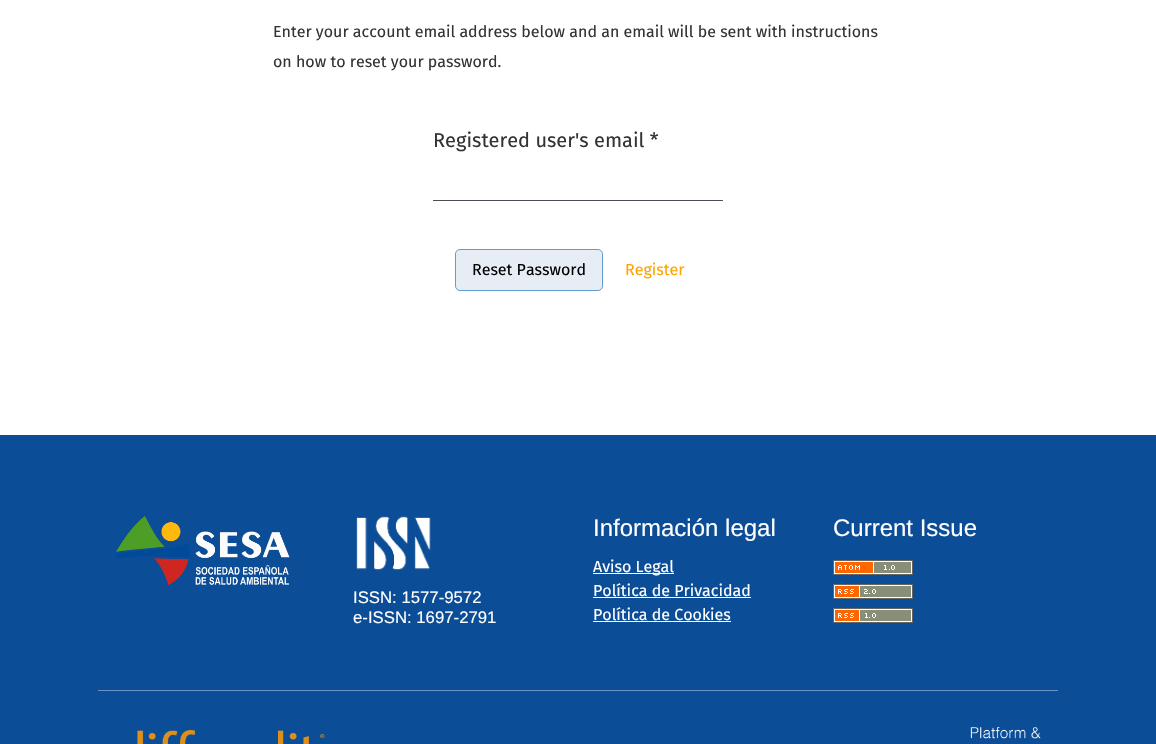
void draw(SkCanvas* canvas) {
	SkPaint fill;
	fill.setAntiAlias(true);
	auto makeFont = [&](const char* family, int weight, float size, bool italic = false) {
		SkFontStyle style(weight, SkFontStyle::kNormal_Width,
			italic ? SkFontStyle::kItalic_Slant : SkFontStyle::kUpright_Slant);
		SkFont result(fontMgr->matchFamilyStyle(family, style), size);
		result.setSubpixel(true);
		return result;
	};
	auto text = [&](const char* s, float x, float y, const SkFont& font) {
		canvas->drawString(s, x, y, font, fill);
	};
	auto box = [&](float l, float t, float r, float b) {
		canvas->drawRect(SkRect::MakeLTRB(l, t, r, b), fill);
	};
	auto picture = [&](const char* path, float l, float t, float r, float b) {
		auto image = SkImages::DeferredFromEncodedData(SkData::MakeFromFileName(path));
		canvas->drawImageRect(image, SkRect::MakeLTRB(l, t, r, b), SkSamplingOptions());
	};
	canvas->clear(0xFFFFFFFF);
	fill.setColor(0xFF495057);
	box(433, 200, 723, 201);
	fill.setColor(0xFFE6EDF4);
	canvas->drawRoundRect(SkRect::MakeLTRB(455.5f, 249.5f, 602.5f, 290.5f), 4.5f, 4.5f, fill);
	fill.setStyle(SkPaint::kStroke_Style);
	fill.setStrokeWidth(1);
	fill.setColor(0xFF6699CC);
	canvas->drawRoundRect(SkRect::MakeLTRB(455.5f, 249.5f, 602.5f, 290.5f), 4.5f, 4.5f, fill);
	fill.setStyle(SkPaint::kFill_Style);
	fill.setColor(0xFF0C4D97);
	box(0, 435, 1156, 744);
	fill.setColor(0xFF6D94C1);
	box(98, 690, 1058, 691);
	picture("image0.png", 116, 516, 290, 585);
	fill.setColor(0xFFFFFFFF);
	box(593, 573, 674, 574);
	box(593, 597, 751, 598);
	box(593, 621, 731, 622);
	picture("image1.png", 833, 560, 913, 575);
	picture("image2.png", 833, 584, 913, 599);
	picture("image3.png", 833, 608, 913, 623);
	picture("image4.png", 356, 516, 431, 570);
	picture("image5.png", 137, 730, 325, 744);
	picture("image6.png", 970, 727, 1041, 739);
	auto font1 = makeFont("Fira Sans", 400, 16);
	fill.setColor(0xFF333333);
	text("Enter your account email address below and an email will be sent with instructions", 273, 37, font1);
	text("on how to reset your password.", 273, 67, font1);
	auto font2 = makeFont("Fira Sans", 400, 20);
	text("Registered user's email *", 433, 147, font2);
	fill.setColor(0xFF000000);
	text("Reset Password", 472, 275, font1);
	fill.setColor(0xFFFFA300);
	text("Register", 625, 275, font1);
	auto font3 = makeFont("Liberation Sans", 400, 24);
	fill.setColor(0xFFFFFFFF);
	text("Información legal", 593, 536, font3);
	text("Aviso Legal", 593, 572, font1);
	text("Política de Privacidad", 593, 596, font1);
	text("Política de Cookies", 593, 620, font1);
	text("Current Issue", 833, 536, font3);
	auto font4 = makeFont("Liberation Sans", 400, 16.75f);
	text("ISSN: 1577-9572", 353, 603, font4);
	text("e-ISSN: 1697-2791", 353, 623, font4);
}
